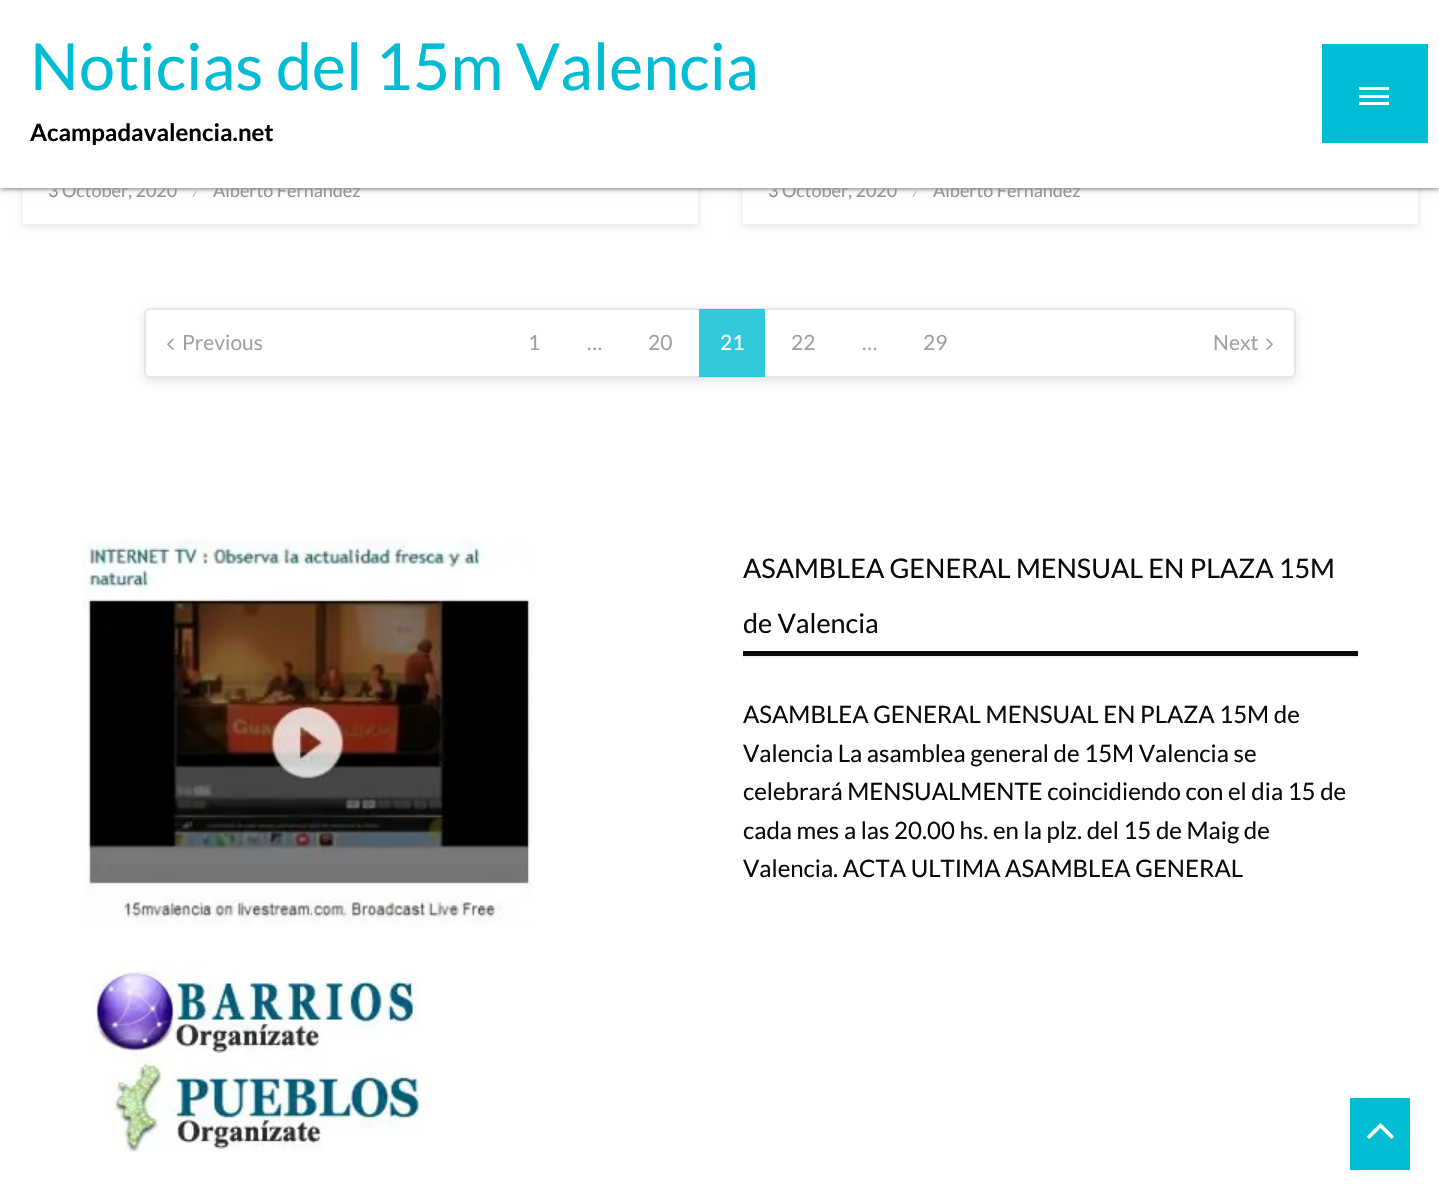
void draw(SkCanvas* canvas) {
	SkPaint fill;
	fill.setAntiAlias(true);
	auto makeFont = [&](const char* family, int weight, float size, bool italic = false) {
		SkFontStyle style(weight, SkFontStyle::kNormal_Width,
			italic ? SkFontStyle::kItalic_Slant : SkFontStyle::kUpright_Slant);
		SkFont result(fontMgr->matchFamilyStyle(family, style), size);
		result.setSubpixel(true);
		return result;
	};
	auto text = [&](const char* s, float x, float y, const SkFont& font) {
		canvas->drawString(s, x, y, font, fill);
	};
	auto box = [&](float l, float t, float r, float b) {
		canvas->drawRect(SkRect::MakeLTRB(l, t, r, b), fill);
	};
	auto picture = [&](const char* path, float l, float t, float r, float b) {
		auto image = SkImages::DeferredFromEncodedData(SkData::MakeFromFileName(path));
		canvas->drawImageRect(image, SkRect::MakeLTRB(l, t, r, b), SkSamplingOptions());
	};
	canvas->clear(0xFFFFFFFF);
	fill.setColor(0x1A000000);
	fill.setMaskFilter(SkMaskFilter::MakeBlur(kNormal_SkBlurStyle, 4));
	canvas->drawRect(SkRect::MakeLTRB(23, -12, 698, 227), fill);
	fill.setMaskFilter(nullptr);
	fill.setColor(0xFFFFFFFF);
	box(23, 188, 698, 224);
	fill.setColor(0x1A000000);
	fill.setMaskFilter(SkMaskFilter::MakeBlur(kNormal_SkBlurStyle, 4));
	canvas->drawRect(SkRect::MakeLTRB(743, -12, 1418, 227), fill);
	fill.setMaskFilter(nullptr);
	fill.setColor(0xFFFFFFFF);
	box(743, 188, 1418, 224);
	fill.setColor(0x1F000000);
	fill.setMaskFilter(SkMaskFilter::MakeBlur(kNormal_SkBlurStyle, 4));
	canvas->drawRect(SkRect::MakeLTRB(0, 2, 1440, 189), fill);
	fill.setMaskFilter(nullptr);
	fill.setColor(0x33000000);
	fill.setMaskFilter(SkMaskFilter::MakeBlur(kNormal_SkBlurStyle, 1));
	canvas->drawRect(SkRect::MakeLTRB(3, 8, 1437, 189), fill);
	fill.setMaskFilter(nullptr);
	fill.setColor(0x24000000);
	fill.setMaskFilter(SkMaskFilter::MakeBlur(kNormal_SkBlurStyle, 1.5f));
	canvas->drawRect(SkRect::MakeLTRB(0, 3, 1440, 191), fill);
	fill.setMaskFilter(nullptr);
	fill.setColor(0x1A000000);
	fill.setMaskFilter(SkMaskFilter::MakeBlur(kNormal_SkBlurStyle, 4));
	canvas->drawRoundRect(SkRect::MakeLTRB(144, 311, 1296, 381), 6, 6, fill);
	fill.setMaskFilter(nullptr);
	fill.setColor(0xFFFFFFFF);
	canvas->drawRoundRect(SkRect::MakeLTRB(145, 309, 1295, 377), 5, 5, fill);
	fill.setStyle(SkPaint::kStroke_Style);
	fill.setStrokeWidth(2);
	fill.setColor(0xFFE6E6E6);
	canvas->drawRoundRect(SkRect::MakeLTRB(145, 309, 1295, 377), 5, 5, fill);
	picture("image0.png", 167, 338, 174, 350);
	fill.setStyle(SkPaint::kFill_Style);
	fill.setColor(0xCC00BCD4);
	box(699, 309, 765, 377);
	picture("image1.png", 1266, 338, 1273, 350);
	picture("image2.png", 82, 539, 533, 927);
	fill.setColor(0xFFEFEFEF);
	box(743, 656, 1358, 658);
	fill.setColor(0xFF0A0A0A);
	box(743, 651, 1358, 656);
	picture("image3.png", 92, 960, 420, 1152);
	fill.setColor(0xFF02BCD4);
	box(1350, 1098, 1410, 1170);
	picture("image4.png", 1367, 1123, 1394, 1139);
	auto font1 = makeFont("Lato", 400, 18);
	fill.setColor(0xFF969292);
	text("3 October, 2020", 48, 197, font1);
	fill.setColor(0xFFC0C0C0);
	text("⁄", 194, 197, font1);
	fill.setColor(0xFF969292);
	text("Alberto Fernandez", 213, 197, font1);
	text("3 October, 2020", 768, 197, font1);
	fill.setColor(0xFFC0C0C0);
	text("⁄", 914, 197, font1);
	fill.setColor(0xFF969292);
	text("Alberto Fernandez", 933, 197, font1);
	fill.setColor(0xFFFFFFFF);
	box(0, 0, 1439, 188);
	fill.setColor(0xFF00BCD4);
	box(1322, 44, 1428, 143);
	fill.setColor(0xFFFFFFFF);
	box(1359, 102, 1389, 105);
	box(1359, 95, 1389, 98);
	box(1359, 87, 1389, 90);
	auto font2 = makeFont("Lato", 700, 24);
	fill.setColor(0xFF000000);
	text("Acampadavalencia.net", 30, 141, font2);
	auto font3 = makeFont("Lato", 400, 64.75f);
	fill.setColor(0xFF00BCD4);
	text("Noticias del 15m Valencia", 30, 90, font3);
	auto font4 = makeFont("Lato", 400, 21);
	fill.setColor(0xFFA59E9F);
	text("Previous", 182, 350, font4);
	text("1", 528, 350, font4);
	text("…", 587, 350, font4);
	text("20", 648, 350, font4);
	fill.setColor(0xFFFFFFFF);
	text("21", 720, 350, font4);
	fill.setColor(0xFFA59E9F);
	text("22", 791, 350, font4);
	text("…", 862, 350, font4);
	text("29", 923, 350, font4);
	text("Next", 1213, 350, font4);
	auto font5 = makeFont("Lato", 400, 27);
	fill.setColor(0xFF0A0A0A);
	text("ASAMBLEA GENERAL MENSUAL EN PLAZA 15M", 743, 578, font5);
	text("de Valencia", 743, 633, font5);
	auto font6 = makeFont("Lato", 400, 24);
	text("ASAMBLEA GENERAL MENSUAL EN PLAZA 15M de", 743, 723, font6);
	text("Valencia La asamblea general de 15M Valencia se", 743, 762, font6);
	text("celebrará MENSUALMENTE coincidiendo con el dia 15 de", 743, 800, font6);
	text("cada mes a las 20.00 hs. en la plz. del 15 de Maig de", 743, 839, font6);
	text("Valencia. ACTA ULTIMA ASAMBLEA GENERAL", 743, 877, font6);
}
